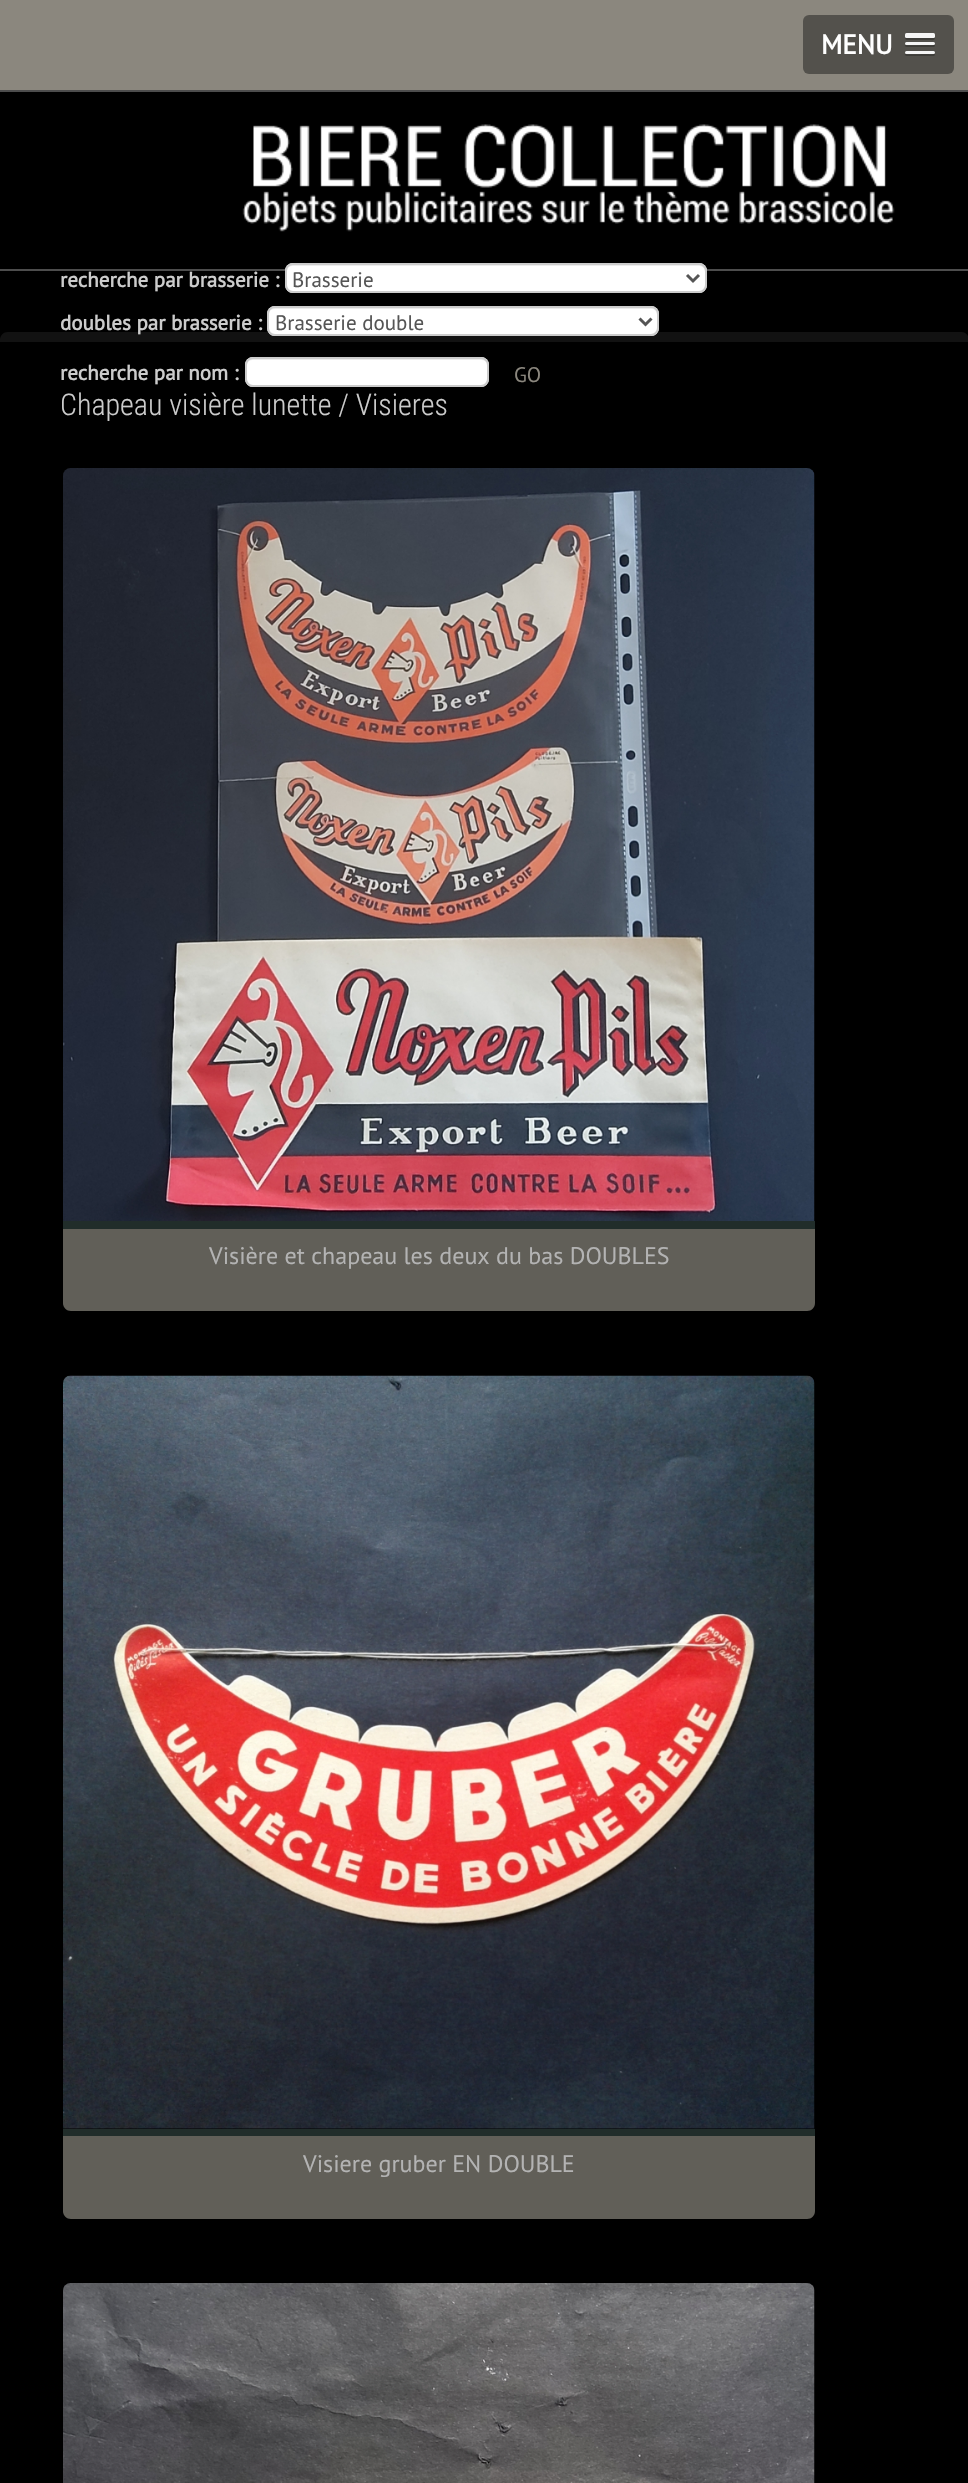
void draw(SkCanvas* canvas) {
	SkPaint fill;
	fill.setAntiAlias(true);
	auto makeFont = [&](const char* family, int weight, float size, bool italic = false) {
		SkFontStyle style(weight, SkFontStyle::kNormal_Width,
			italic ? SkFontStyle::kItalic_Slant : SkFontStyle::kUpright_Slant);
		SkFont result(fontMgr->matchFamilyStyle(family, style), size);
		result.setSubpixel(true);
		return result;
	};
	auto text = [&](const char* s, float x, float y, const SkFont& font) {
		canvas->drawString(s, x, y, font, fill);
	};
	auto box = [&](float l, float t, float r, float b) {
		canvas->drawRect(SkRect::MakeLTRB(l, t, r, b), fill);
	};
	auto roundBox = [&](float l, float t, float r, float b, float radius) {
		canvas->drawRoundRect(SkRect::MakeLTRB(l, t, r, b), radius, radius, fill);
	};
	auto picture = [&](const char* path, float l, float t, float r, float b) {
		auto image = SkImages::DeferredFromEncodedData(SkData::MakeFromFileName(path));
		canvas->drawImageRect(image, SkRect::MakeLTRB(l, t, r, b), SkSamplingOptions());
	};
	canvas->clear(0xFF000000);
	fill.setColor(0xFF8B877E);
	box(0, 0, 968, 90);
	fill.setColor(0xFF53514C);
	roundBox(803, 15, 954, 74, 6);
	fill.setColor(0xFF3E3D39);
	canvas->drawPath(SkPathBuilder().moveTo(905, 37).cubicTo(905, 41, 907, 40, 911, 40).lineTo(929, 40).cubicTo(932.5f, 40, 935, 41, 935, 37.5f).cubicTo(935, 36.5f, 935, 36, 934.5f, 35.5f).lineTo(934.5f, 36).cubicTo(934.5f, 37, 934, 37.5f, 933, 37.5f).lineTo(906, 37.5f).close().detach(), fill);
	fill.setColor(0xFFF5F5F5);
	roundBox(905, 33, 935, 38, 1.5f);
	fill.setColor(0xFF3E3D39);
	canvas->drawPath(SkPathBuilder().moveTo(905, 45).cubicTo(903.5f, 47.5f, 908, 47, 911, 47).lineTo(934, 47).cubicTo(935, 46.5f, 935.5f, 45, 934.5f, 44).cubicTo(933.5f, 46, 929, 45, 928.5f, 45).cubicTo(925.5f, 45, 906.5f, 45.5f, 905, 45).close().detach(), fill);
	fill.setColor(0xFFF5F5F5);
	roundBox(905, 42, 935, 45, 1.5f);
	fill.setColor(0xFF3E3D39);
	canvas->drawPath(SkPathBuilder().moveTo(905, 54).cubicTo(903.5f, 56.5f, 908, 56, 911, 56).lineTo(934, 56).cubicTo(935, 55.5f, 935.5f, 54, 934.5f, 53).cubicTo(933.5f, 55, 929, 54, 928.5f, 54).cubicTo(925.5f, 54, 906.5f, 54.5f, 905, 54).close().detach(), fill);
	fill.setColor(0xFFF5F5F5);
	roundBox(905, 51, 935, 54, 1.5f);
	fill.setColor(0xFF4D4D4D);
	box(0, 90, 968, 92);
	box(0, 269, 968, 271);
	picture("image0.png", 242, 124, 895, 232);
	fill.setColor(0xFFFFFFFF);
	roundBox(285, 263, 707, 293, 8);
	fill.setColor(0xFFECECEC);
	canvas->drawPath(SkPathBuilder().moveTo(292, 266).lineTo(699, 266).cubicTo(702, 266, 705, 268, 705, 272).lineTo(705, 270).cubicTo(705, 267, 702, 264, 699, 264).lineTo(293, 264).cubicTo(290, 264, 288, 266, 287, 268).cubicTo(288, 267, 290, 266, 292, 266).close().detach(), fill);
	fill.setStyle(SkPaint::kStroke_Style);
	fill.setStrokeWidth(2);
	fill.setColor(0xFFCCCCCC);
	canvas->drawRoundRect(SkRect::MakeLTRB(286, 264, 706, 292), 7, 7, fill);
	fill.setStrokeWidth(3);
	fill.setColor(0xFF555555);
	canvas->drawPath(SkPathBuilder().moveTo(687, 275).lineTo(693, 281).lineTo(699, 275).detach(), fill);
	fill.setStyle(SkPaint::kFill_Style);
	fill.setColor(0xFF121212);
	canvas->drawPath(SkPathBuilder().moveTo(8, 332).lineTo(961, 332).cubicTo(965.5f, 332, 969, 335.5f, 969, 340).lineTo(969, 342).lineTo(0, 342).lineTo(0, 340).cubicTo(0, 335.5f, 3.5f, 332, 8, 332).close().detach(), fill);
	fill.setColor(0xFFFFFFFF);
	roundBox(267, 306, 659, 336, 8);
	fill.setColor(0xFFECECEC);
	canvas->drawPath(SkPathBuilder(SkPathFillType::kEvenOdd).moveTo(274, 309).lineTo(651, 309).cubicTo(655, 309, 656, 311, 657, 314).cubicTo(657, 311, 654, 308, 651, 308).lineTo(275, 308).cubicTo(273, 308, 271, 309, 270, 310).cubicTo(271, 310, 272, 309, 274, 309).close().moveTo(657, 328).lineTo(657, 330).close().detach(), fill);
	fill.setStyle(SkPaint::kStroke_Style);
	fill.setStrokeWidth(2);
	fill.setColor(0xFFCCCCCC);
	canvas->drawRoundRect(SkRect::MakeLTRB(268, 307, 658, 335), 7, 7, fill);
	fill.setStrokeWidth(3);
	fill.setColor(0xFF555555);
	canvas->drawPath(SkPathBuilder().moveTo(639.5f, 318.5f).lineTo(645.5f, 324.5f).lineTo(651.5f, 318.5f).detach(), fill);
	fill.setStyle(SkPaint::kFill_Style);
	fill.setColor(0xFFFFFFFF);
	roundBox(245, 357, 489, 387, 8);
	fill.setColor(0xFFECECEC);
	canvas->drawPath(SkPathBuilder().moveTo(252, 360).lineTo(482, 360).cubicTo(485, 360, 488, 363, 488, 366).cubicTo(488, 362, 486, 359, 482, 359).lineTo(251, 359).cubicTo(247, 360, 246, 363, 246, 366).cubicTo(246, 363, 249, 360, 252, 360).close().detach(), fill);
	fill.setStyle(SkPaint::kStroke_Style);
	fill.setStrokeWidth(2);
	fill.setColor(0xFFCCCCCC);
	canvas->drawRoundRect(SkRect::MakeLTRB(246, 358, 488, 386), 7, 7, fill);
	picture("image1.png", 63, 468, 815, 1221);
	fill.setStyle(SkPaint::kFill_Style);
	fill.setColor(0xFF615F58);
	canvas->drawPath(SkPathBuilder().moveTo(63, 1221).lineTo(815, 1221).lineTo(815, 1303).cubicTo(815, 1307.5f, 811.5f, 1311, 807, 1311).lineTo(71, 1311).cubicTo(66.5f, 1311, 63, 1307.5f, 63, 1303).close().detach(), fill);
	fill.setColor(0xFF212D2A);
	box(63, 1221, 815, 1229);
	picture("image2.png", 63, 1375, 815, 2129);
	fill.setColor(0xFF615F58);
	canvas->drawPath(SkPathBuilder().moveTo(63, 2129).lineTo(815, 2129).lineTo(815, 2211).cubicTo(815, 2215.5f, 811.5f, 2219, 807, 2219).lineTo(71, 2219).cubicTo(66.5f, 2219, 63, 2215.5f, 63, 2211).close().detach(), fill);
	fill.setColor(0xFF212D2A);
	box(63, 2129, 815, 2136);
	picture("image3.png", 63, 2283, 815, 2483);
	auto font1 = makeFont("PT Sans", 700, 27);
	fill.setColor(0xFFFFFFFF);
	text("MENU", 821, 54, font1);
	auto font2 = makeFont("PT Sans", 700, 21);
	fill.setColor(0xFFCCCCCC);
	text("recherche par brasserie :", 60, 287, font2);
	auto font3 = makeFont("PT Sans", 400, 21);
	fill.setColor(0xFF555555);
	text("Brasserie", 292, 287, font3);
	fill.setColor(0xFFCCCCCC);
	text("doubles par brasserie :", 60, 330, font2);
	fill.setColor(0xFF555555);
	text("Brasserie double", 275, 330, font3);
	fill.setColor(0xFFCCCCCC);
	text("recherche par nom :", 60, 380, font2);
	fill.setColor(0xFF8B877E);
	text("GO", 514, 382, font3);
	auto font4 = makeFont("Roboto Condensed", 300, 30);
	fill.setColor(0xFFCCCCCC);
	text("Chapeau visière lunette / Visieres", 60, 415, font4);
	auto font5 = makeFont("PT Sans", 400, 24);
	fill.setColor(0xFFB3B3B3);
	text("Visière et chapeau les deux du bas DOUBLES", 209, 1264, font5);
	text("Visiere gruber EN DOUBLE", 303, 2172, font5);
}
